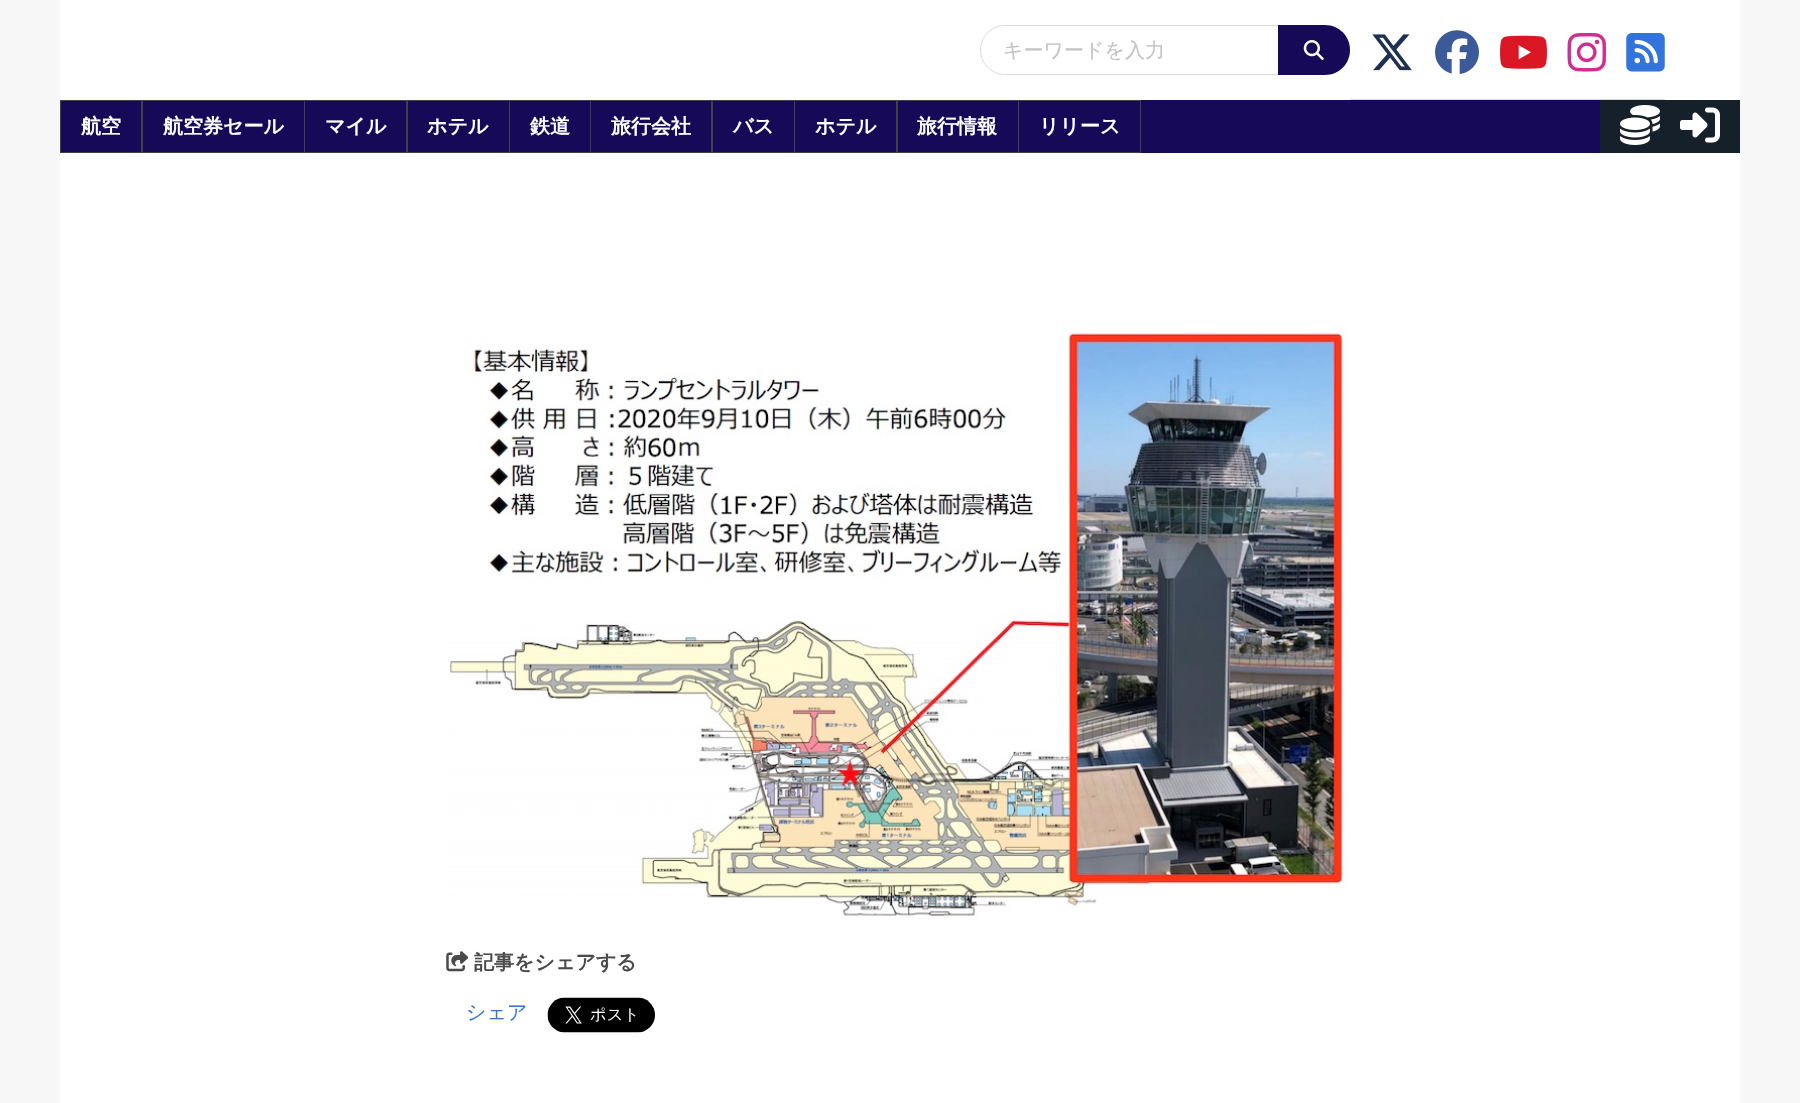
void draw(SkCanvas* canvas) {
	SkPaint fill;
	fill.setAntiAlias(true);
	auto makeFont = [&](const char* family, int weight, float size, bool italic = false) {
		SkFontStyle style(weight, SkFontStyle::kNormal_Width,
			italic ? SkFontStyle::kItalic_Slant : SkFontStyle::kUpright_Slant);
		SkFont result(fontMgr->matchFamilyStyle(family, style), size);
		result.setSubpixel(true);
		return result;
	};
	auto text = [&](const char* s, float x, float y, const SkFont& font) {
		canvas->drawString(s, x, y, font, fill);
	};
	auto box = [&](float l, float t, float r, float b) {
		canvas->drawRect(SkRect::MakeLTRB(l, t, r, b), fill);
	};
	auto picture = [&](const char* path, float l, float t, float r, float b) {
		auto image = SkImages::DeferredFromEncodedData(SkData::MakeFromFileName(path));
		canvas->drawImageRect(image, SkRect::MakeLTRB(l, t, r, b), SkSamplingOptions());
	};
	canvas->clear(0xFFF7F7F7);
	fill.setColor(0xFFFFFFFF);
	box(60, 0, 1740, 1103);
	fill.setStyle(SkPaint::kStroke_Style);
	fill.setStrokeWidth(1);
	fill.setColor(0xFFDBDBDB);
	canvas->drawPath(SkPathBuilder().moveTo(1005, 25.5f).lineTo(1278.5f, 25.5f).lineTo(1278.5f, 74.5f).lineTo(1005, 74.5f).cubicTo(991.5f, 74.5f, 980.5f, 63.5f, 980.5f, 50).cubicTo(980.5f, 36.5f, 991.5f, 25.5f, 1005, 25.5f).close().detach(), fill);
	fill.setStyle(SkPaint::kFill_Style);
	fill.setColor(0xFF150958);
	canvas->drawPath(SkPathBuilder().moveTo(1278, 25).lineTo(1325, 25).cubicTo(1339, 25, 1350, 36, 1350, 50).cubicTo(1350, 64, 1339, 75, 1325, 75).lineTo(1278, 75).close().detach(), fill);
	picture("image0.png", 1303, 40, 1324, 60);
	fill.setColor(0xFFDBDBDB);
	box(1350, 99, 1665, 100);
	picture("image1.png", 1372, 34, 1412, 71);
	picture("image2.png", 1435, 30, 1479, 74);
	picture("image3.png", 1500, 35, 1547, 69);
	picture("image4.png", 1567, 33, 1606, 72);
	picture("image5.png", 1626, 33, 1665, 72);
	fill.setColor(0xFF150958);
	box(61, 100, 1600, 153);
	fill.setStyle(SkPaint::kStroke_Style);
	fill.setColor(0xFF414042);
	canvas->drawRect(SkRect::MakeLTRB(60.5f, 100.5f, 142.5f, 152.5f), fill);
	canvas->drawRect(SkRect::MakeLTRB(141.5f, 100.5f, 304.5f, 152.5f), fill);
	canvas->drawRect(SkRect::MakeLTRB(304.5f, 100.5f, 407.5f, 152.5f), fill);
	canvas->drawRect(SkRect::MakeLTRB(406.5f, 100.5f, 509.5f, 152.5f), fill);
	canvas->drawRect(SkRect::MakeLTRB(509.5f, 100.5f, 590.5f, 152.5f), fill);
	canvas->drawRect(SkRect::MakeLTRB(590.5f, 100.5f, 712.5f, 152.5f), fill);
	canvas->drawRect(SkRect::MakeLTRB(711.5f, 100.5f, 794.5f, 152.5f), fill);
	canvas->drawRect(SkRect::MakeLTRB(794.5f, 100.5f, 897.5f, 152.5f), fill);
	canvas->drawRect(SkRect::MakeLTRB(896.5f, 100.5f, 1018.5f, 152.5f), fill);
	canvas->drawRect(SkRect::MakeLTRB(1018.5f, 100.5f, 1140.5f, 152.5f), fill);
	fill.setStyle(SkPaint::kFill_Style);
	fill.setColor(0xFF15202B);
	box(1600, 100, 1740, 153);
	picture("image6.png", 1620, 105, 1660, 145);
	picture("image7.png", 1680, 107, 1720, 143);
	picture("image8.png", 447, 323, 1349, 920);
	picture("image9.png", 446, 951, 469, 972);
	picture("image10.png", 547, 997, 655, 1033);
	auto font1 = makeFont("WenQuanYi Zen Hei", 500, 20);
	fill.setColor(0xFFC3C3C3);
	text("キーワードを入力", 1003, 57, font1);
	auto font2 = makeFont("WenQuanYi Zen Hei", 700, 20);
	fill.setColor(0xFFFFFFFF);
	text("航空", 81, 133, font2);
	text("航空券セール", 163, 133, font2);
	text("マイル", 325, 133, font2);
	text("ホテル", 427, 133, font2);
	text("鉄道", 530, 133, font2);
	text("旅行会社", 611, 133, font2);
	text("バス", 733, 133, font2);
	text("ホテル", 815, 133, font2);
	text("旅行情報", 917, 133, font2);
	text("リリース", 1039, 133, font2);
	fill.setColor(0xFF4A4A4A);
	text("記事をシェアする", 474, 969, font2);
	fill.setColor(0xFF3273DC);
	text("シェア", 466, 1019, font1);
}
